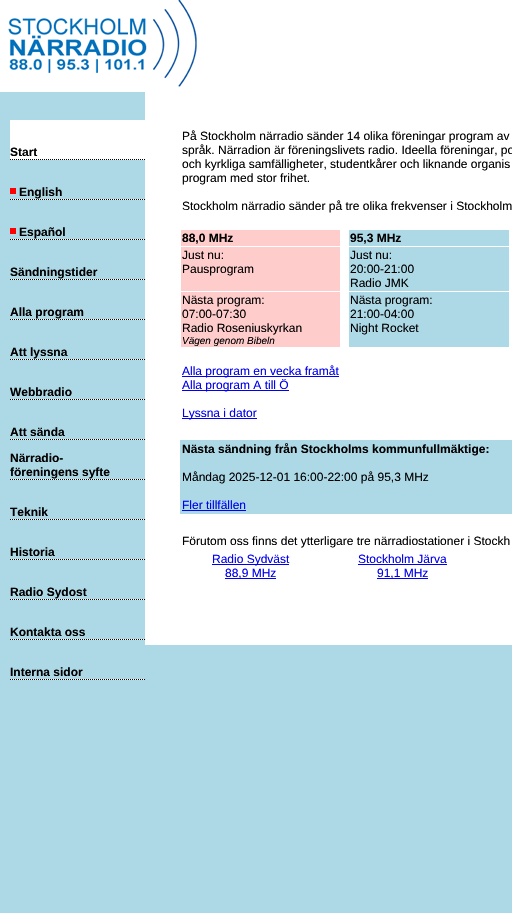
void draw(SkCanvas* canvas) {
	SkPaint fill;
	fill.setAntiAlias(true);
	auto makeFont = [&](const char* family, int weight, float size, bool italic = false) {
		SkFontStyle style(weight, SkFontStyle::kNormal_Width,
			italic ? SkFontStyle::kItalic_Slant : SkFontStyle::kUpright_Slant);
		SkFont result(fontMgr->matchFamilyStyle(family, style), size);
		result.setSubpixel(true);
		return result;
	};
	auto text = [&](const char* s, float x, float y, const SkFont& font) {
		canvas->drawString(s, x, y, font, fill);
	};
	auto box = [&](float l, float t, float r, float b) {
		canvas->drawRect(SkRect::MakeLTRB(l, t, r, b), fill);
	};
	auto picture = [&](const char* path, float l, float t, float r, float b) {
		auto image = SkImages::DeferredFromEncodedData(SkData::MakeFromFileName(path));
		canvas->drawImageRect(image, SkRect::MakeLTRB(l, t, r, b), SkSamplingOptions());
	};
	canvas->clear(0xFFADD8E6);
	fill.setColor(0xFFFFFFFF);
	box(0, 0, 512, 92);
	picture("image0.png", 8, 0, 197, 87);
	box(10, 120, 145, 159);
	picture("image1.png", 10, 159, 145, 160);
	fill.setColor(0xFFFF0000);
	box(10, 188, 16, 194);
	picture("image1.png", 10, 199, 145, 200);
	box(10, 228, 16, 234);
	picture("image1.png", 10, 239, 145, 240);
	picture("image1.png", 10, 279, 145, 280);
	picture("image1.png", 10, 319, 145, 320);
	picture("image1.png", 10, 359, 145, 360);
	picture("image1.png", 10, 399, 145, 400);
	picture("image1.png", 10, 439, 145, 440);
	picture("image1.png", 10, 479, 145, 480);
	picture("image1.png", 10, 519, 145, 520);
	picture("image1.png", 10, 559, 145, 560);
	picture("image1.png", 10, 599, 145, 600);
	picture("image1.png", 10, 639, 145, 640);
	picture("image1.png", 10, 679, 145, 680);
	fill.setColor(0xFFFFFFFF);
	box(145, 92, 512, 645);
	fill.setColor(0xFFFFCCCC);
	box(181, 230, 340, 246);
	fill.setColor(0xFFADD8E6);
	box(349, 230, 509, 246);
	fill.setColor(0xFFFFCCCC);
	box(181, 247, 340, 291);
	fill.setColor(0xFFADD8E6);
	box(349, 247, 509, 291);
	fill.setColor(0xFFFFCCCC);
	box(181, 292, 340, 347);
	fill.setColor(0xFFADD8E6);
	box(349, 292, 509, 347);
	fill.setColor(0xFF0000EE);
	box(182, 376, 339, 377);
	box(182, 390, 289, 391);
	box(182, 418, 257, 419);
	fill.setColor(0xFFADD8E6);
	box(180, 440, 512, 514);
	fill.setColor(0xFF0000EE);
	box(182, 510, 246, 511);
	box(212, 564, 289, 565);
	box(225, 578, 276, 579);
	box(358, 564, 447, 565);
	box(377, 578, 428, 579);
	auto font1 = makeFont("Liberation Sans", 700, 12);
	fill.setColor(0xFF000000);
	text("Start", 10, 156, font1);
	text("English", 19, 196, font1);
	text("Español", 19, 236, font1);
	text("Sändningstider", 10, 276, font1);
	text("Alla program", 10, 316, font1);
	text("Att lyssna", 10, 356, font1);
	text("Webbradio", 10, 396, font1);
	text("Att sända", 10, 436, font1);
	text("Närradio-", 10, 462, font1);
	text("föreningens syfte", 10, 476, font1);
	text("Teknik", 10, 516, font1);
	text("Historia", 10, 556, font1);
	text("Radio Sydost", 10, 596, font1);
	text("Kontakta oss", 10, 636, font1);
	text("Interna sidor", 10, 676, font1);
	auto font2 = makeFont("Liberation Sans", 400, 12);
	text("På Stockholm närradio sänder 14 olika föreningar program av", 182, 140, font2);
	text("språk. Närradion är föreningslivets radio. Ideella föreningar, po", 182, 154, font2);
	text("och kyrkliga samfälligheter, studentkårer och liknande organis", 182, 168, font2);
	text("program med stor frihet.", 182, 182, font2);
	text("Stockholm närradio sänder på tre olika frekvenser i Stockholm", 182, 210, font2);
	text("88,0 MHz", 182, 242, font1);
	text("95,3 MHz", 350, 242, font1);
	text("Just nu:", 182, 259, font2);
	text("Pausprogram", 182, 273, font2);
	text("Just nu:", 350, 259, font2);
	text("20:00-21:00", 350, 273, font2);
	text("Radio JMK", 350, 287, font2);
	text("Nästa program:", 182, 304, font2);
	text("07:00-07:30", 182, 318, font2);
	text("Radio Roseniuskyrkan", 182, 332, font2);
	auto font3 = makeFont("Liberation Sans", 400, 10, true);
	text("Vägen genom Bibeln", 182, 344, font3);
	text("Nästa program:", 350, 304, font2);
	text("21:00-04:00", 350, 318, font2);
	text("Night Rocket", 350, 332, font2);
	fill.setColor(0xFF0000EE);
	text("Alla program en vecka framåt", 182, 375, font2);
	text("Alla program A till Ö", 182, 389, font2);
	text("Lyssna i dator", 182, 417, font2);
	fill.setColor(0xFF000000);
	text("Nästa sändning från Stockholms kommunfullmäktige:", 182, 453, font1);
	text("Måndag 2025-12-01 16:00-22:00 på 95,3 MHz", 182, 481, font2);
	fill.setColor(0xFF0000EE);
	text("Fler tillfällen", 182, 509, font2);
	fill.setColor(0xFF000000);
	text("Förutom oss finns det ytterligare tre närradiostationer i Stockh", 182, 545, font2);
	fill.setColor(0xFF0000EE);
	text("Radio Sydväst", 212, 563, font2);
	text("88,9 MHz", 225, 577, font2);
	text("Stockholm Järva", 358, 563, font2);
	text("91,1 MHz", 377, 577, font2);
}
